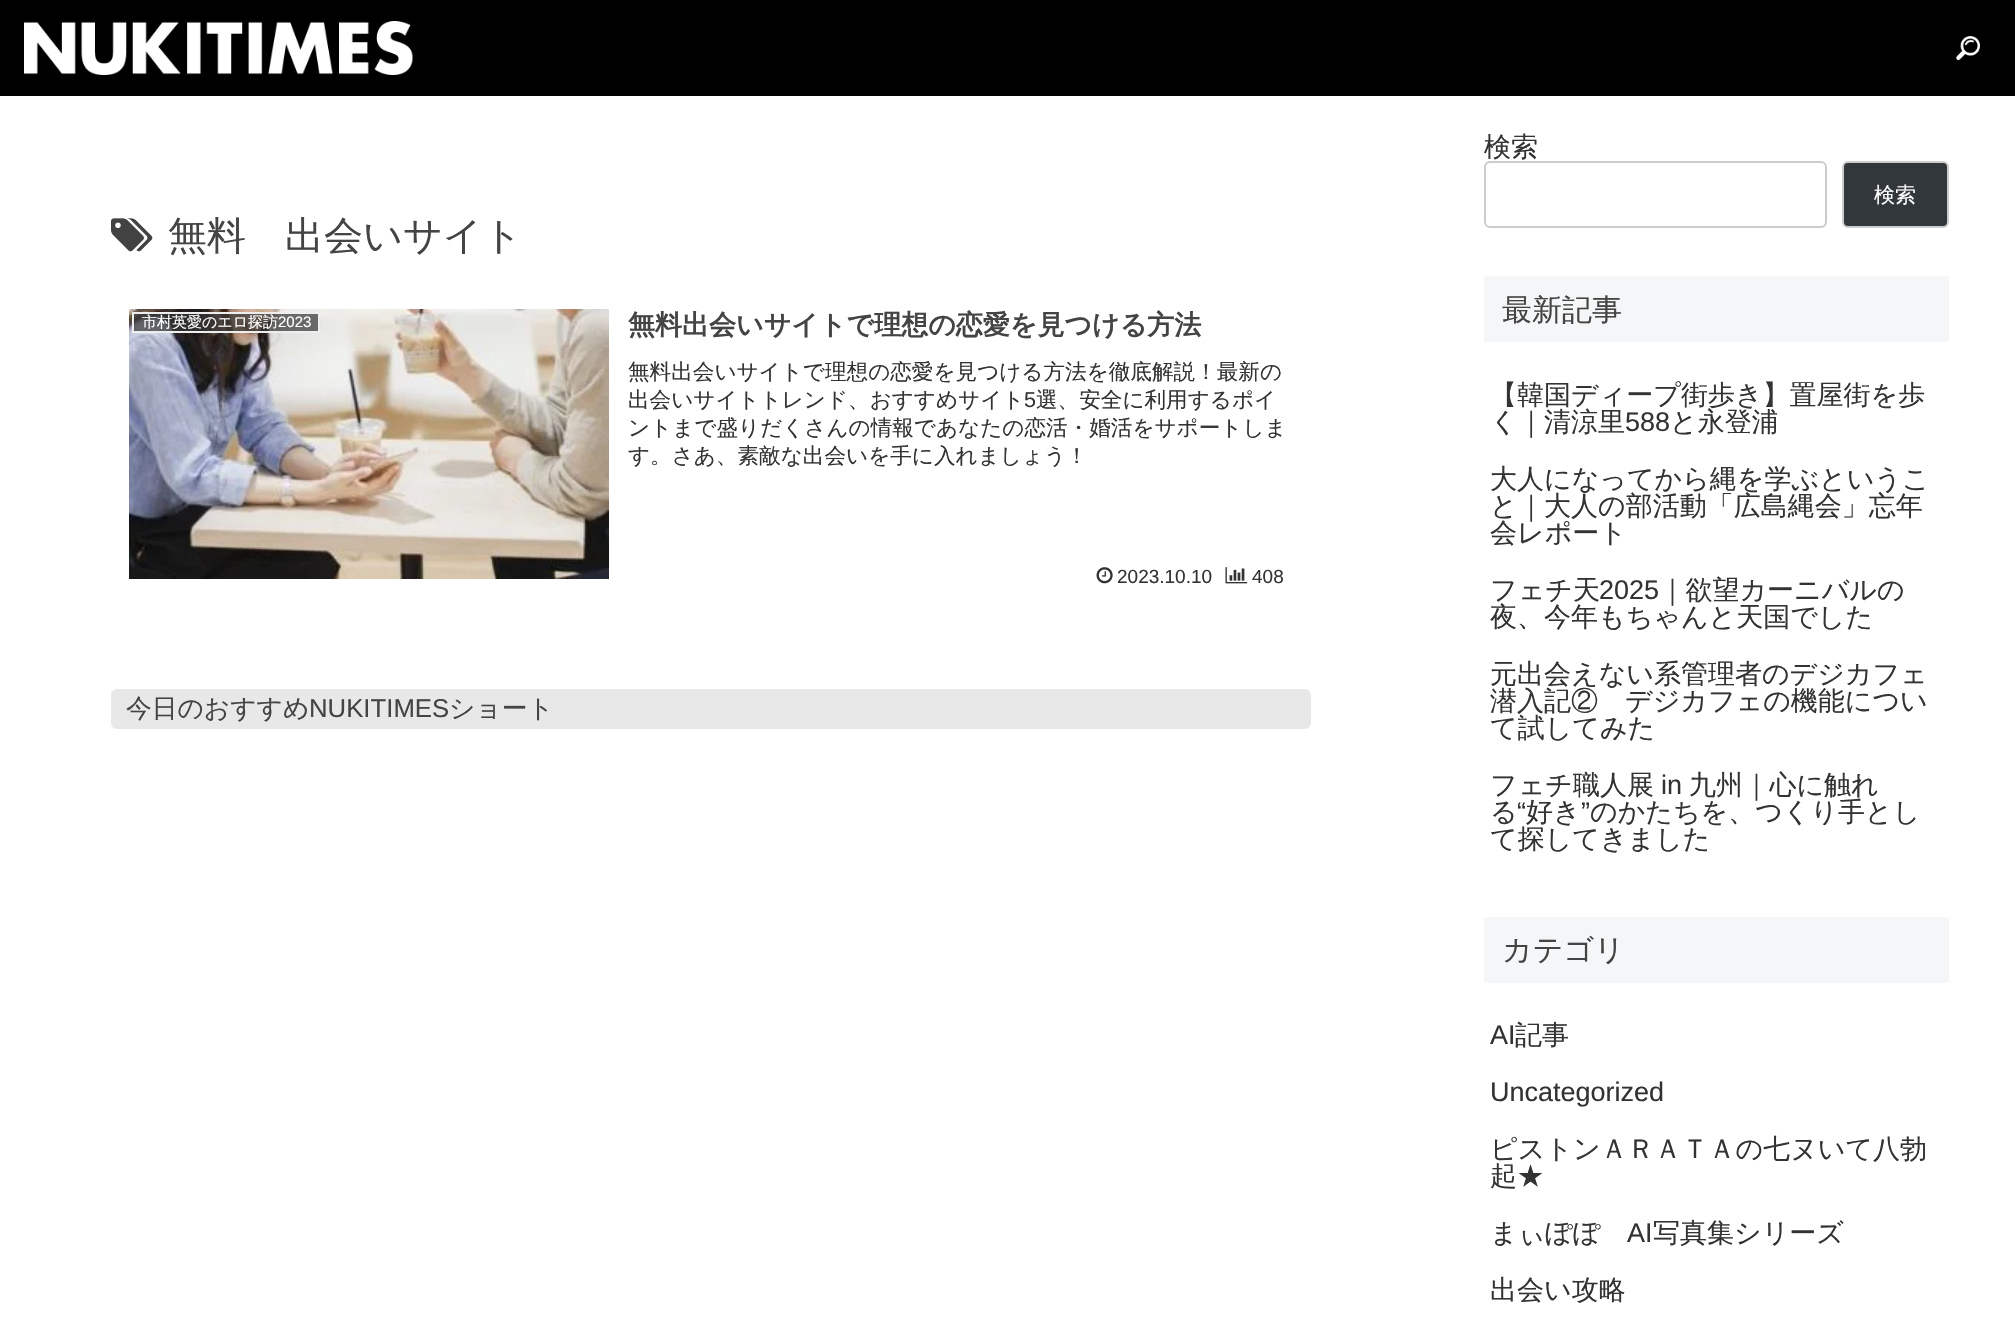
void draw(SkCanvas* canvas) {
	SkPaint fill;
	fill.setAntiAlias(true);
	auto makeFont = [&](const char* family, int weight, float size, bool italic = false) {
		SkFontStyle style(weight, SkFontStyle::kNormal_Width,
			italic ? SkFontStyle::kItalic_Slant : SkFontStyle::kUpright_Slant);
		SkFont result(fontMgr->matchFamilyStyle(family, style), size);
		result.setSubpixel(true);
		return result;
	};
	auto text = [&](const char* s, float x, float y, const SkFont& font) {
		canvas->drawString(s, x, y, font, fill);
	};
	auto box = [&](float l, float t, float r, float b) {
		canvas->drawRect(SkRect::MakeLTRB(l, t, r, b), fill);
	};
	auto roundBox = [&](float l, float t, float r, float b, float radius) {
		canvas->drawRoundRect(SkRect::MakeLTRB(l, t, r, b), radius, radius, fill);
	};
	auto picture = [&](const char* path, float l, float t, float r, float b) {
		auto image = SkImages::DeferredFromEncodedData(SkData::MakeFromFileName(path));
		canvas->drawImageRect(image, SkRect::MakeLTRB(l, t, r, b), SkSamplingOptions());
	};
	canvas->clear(0xFFFFFFFF);
	fill.setColor(0xFF000000);
	box(0, 0, 2015, 96);
	picture("image0.png", 24, 21, 413, 75);
	picture("image1.png", 1956, 36, 1980, 60);
	picture("image2.png", 111, 218, 153, 252);
	picture("image3.png", 129, 309, 609, 579);
	fill.setColor(0xB3333333);
	canvas->drawRect(SkRect::MakeLTRB(133, 313, 319, 332), fill);
	fill.setStyle(SkPaint::kStroke_Style);
	fill.setStrokeWidth(2);
	fill.setColor(0xFFEEEEEE);
	canvas->drawRect(SkRect::MakeLTRB(133, 313, 319, 332), fill);
	picture("image4.png", 1096, 567, 1113, 584);
	picture("image5.png", 1225, 567, 1248, 584);
	fill.setStyle(SkPaint::kFill_Style);
	fill.setColor(0xFFE8E8E8);
	roundBox(111, 689, 1311, 729, 6);
	fill.setStyle(SkPaint::kStroke_Style);
	fill.setColor(0xFFCCCCCC);
	canvas->drawRoundRect(SkRect::MakeLTRB(1485, 162, 1826, 227), 5, 5, fill);
	fill.setStyle(SkPaint::kFill_Style);
	fill.setColor(0xFF32373C);
	canvas->drawRoundRect(SkRect::MakeLTRB(1843, 162, 1948, 227), 5, 5, fill);
	fill.setStyle(SkPaint::kStroke_Style);
	fill.setColor(0xFFCCCCCC);
	canvas->drawRoundRect(SkRect::MakeLTRB(1843, 162, 1948, 227), 5, 5, fill);
	fill.setStyle(SkPaint::kFill_Style);
	fill.setColor(0xFFF5F6F7);
	roundBox(1484, 276, 1949, 342, 3);
	roundBox(1484, 917, 1949, 983, 3);
	auto font1 = makeFont("WenQuanYi Zen Hei", 500, 39);
	fill.setColor(0xFF444444);
	text("無料　出会いサイト", 168, 249, font1);
	auto font2 = makeFont("WenQuanYi Zen Hei", 500, 15);
	fill.setColor(0xFFFFFFFF);
	text("市村英愛のエロ探訪", 142, 327, font2);
	auto font3 = makeFont("Liberation Sans", 400, 15);
	text("2023", 278, 327, font3);
	auto font4 = makeFont("WenQuanYi Zen Hei", 700, 27);
	fill.setColor(0xFF444444);
	text("無料出会いサイトで理想の恋愛を見つける方法", 628, 334, font4);
	auto font5 = makeFont("WenQuanYi Zen Hei", 500, 21.6f);
	fill.setColor(0xFF333333);
	text("無料出会いサイトで理想の恋愛を見つける方法を徹底解説！最新の", 628, 379, font5);
	text("出会いサイトトレンド、おすすめサイト", 628, 407, font5);
	auto font6 = makeFont("Liberation Sans", 400, 21.6f);
	text("5", 1024, 407, font6);
	text("選、安全に利用するポイ", 1036, 407, font5);
	text("ントまで盛りだくさんの情報であなたの恋活・婚活をサポートしま", 628, 435, font5);
	text("す。さあ、素敵な出会いを手に入れましょう！", 628, 463, font5);
	auto font7 = makeFont("Liberation Sans", 400, 19);
	text("2023.10.10", 1117, 583, font7);
	text("408", 1252, 583, font7);
	auto font8 = makeFont("WenQuanYi Zen Hei", 500, 25.75f);
	fill.setColor(0xFF444444);
	text("今日のおすすめ", 126, 717, font8);
	auto font9 = makeFont("Liberation Sans", 400, 25.75f);
	text("NUKITIMES", 309, 717, font9);
	text("ショート", 449, 717, font8);
	auto font10 = makeFont("WenQuanYi Zen Hei", 500, 27);
	fill.setColor(0xFF333333);
	text("検索", 1484, 156, font10);
	auto font11 = makeFont("WenQuanYi Zen Hei", 500, 21);
	fill.setColor(0xFFFFFFFF);
	text("検索", 1874, 202, font11);
	auto font12 = makeFont("WenQuanYi Zen Hei", 500, 30);
	fill.setColor(0xFF444444);
	text("最新記事", 1502, 320, font12);
	fill.setColor(0xFF333333);
	text("【韓国ディープ街歩き】置屋街を歩", 1490, 404, font10);
	text("く｜清涼里", 1490, 431, font10);
	auto font13 = makeFont("Liberation Sans", 400, 27);
	text("588", 1625, 431, font13);
	text("と永登浦", 1670, 431, font10);
	text("大人になってから縄を学ぶというこ", 1490, 488, font10);
	text("と｜大人の部活動「広島縄会」忘年", 1490, 515, font10);
	text("会レポート", 1490, 542, font10);
	text("フェチ天", 1490, 599, font10);
	text("2025", 1599, 599, font13);
	text("｜欲望カーニバルの", 1659, 599, font10);
	text("夜、今年もちゃんと天国でした", 1490, 626, font10);
	text("元出会えない系管理者のデジカフェ", 1490, 683, font10);
	text("潜入記②　デジカフェの機能につい", 1490, 710, font10);
	text("て試してみた", 1490, 737, font10);
	text("フェチ職人展", 1490, 794, font10);
	text("in", 1661, 794, font13);
	text("九州｜心に触れ", 1689, 794, font10);
	text("る", 1490, 821, font10);
	text("“", 1517, 821, font13);
	text("好き", 1526, 821, font10);
	text("”", 1581, 821, font13);
	text("のかたちを、つくり手とし", 1590, 821, font10);
	text("て探してきました", 1490, 848, font10);
	fill.setColor(0xFF444444);
	text("カテゴリ", 1502, 960, font12);
	fill.setColor(0xFF333333);
	text("AI", 1490, 1044, font13);
	text("記事", 1515, 1044, font10);
	text("Uncategorized", 1490, 1101, font13);
	text("ピストンＡＲＡＴＡの七ヌいて八勃", 1490, 1158, font10);
	text("起★", 1490, 1185, font10);
	text("まぃぽぽ", 1490, 1242, font10);
	text("AI", 1627, 1242, font13);
	text("写真集シリーズ", 1653, 1242, font10);
	text("出会い攻略", 1490, 1299, font10);
}
